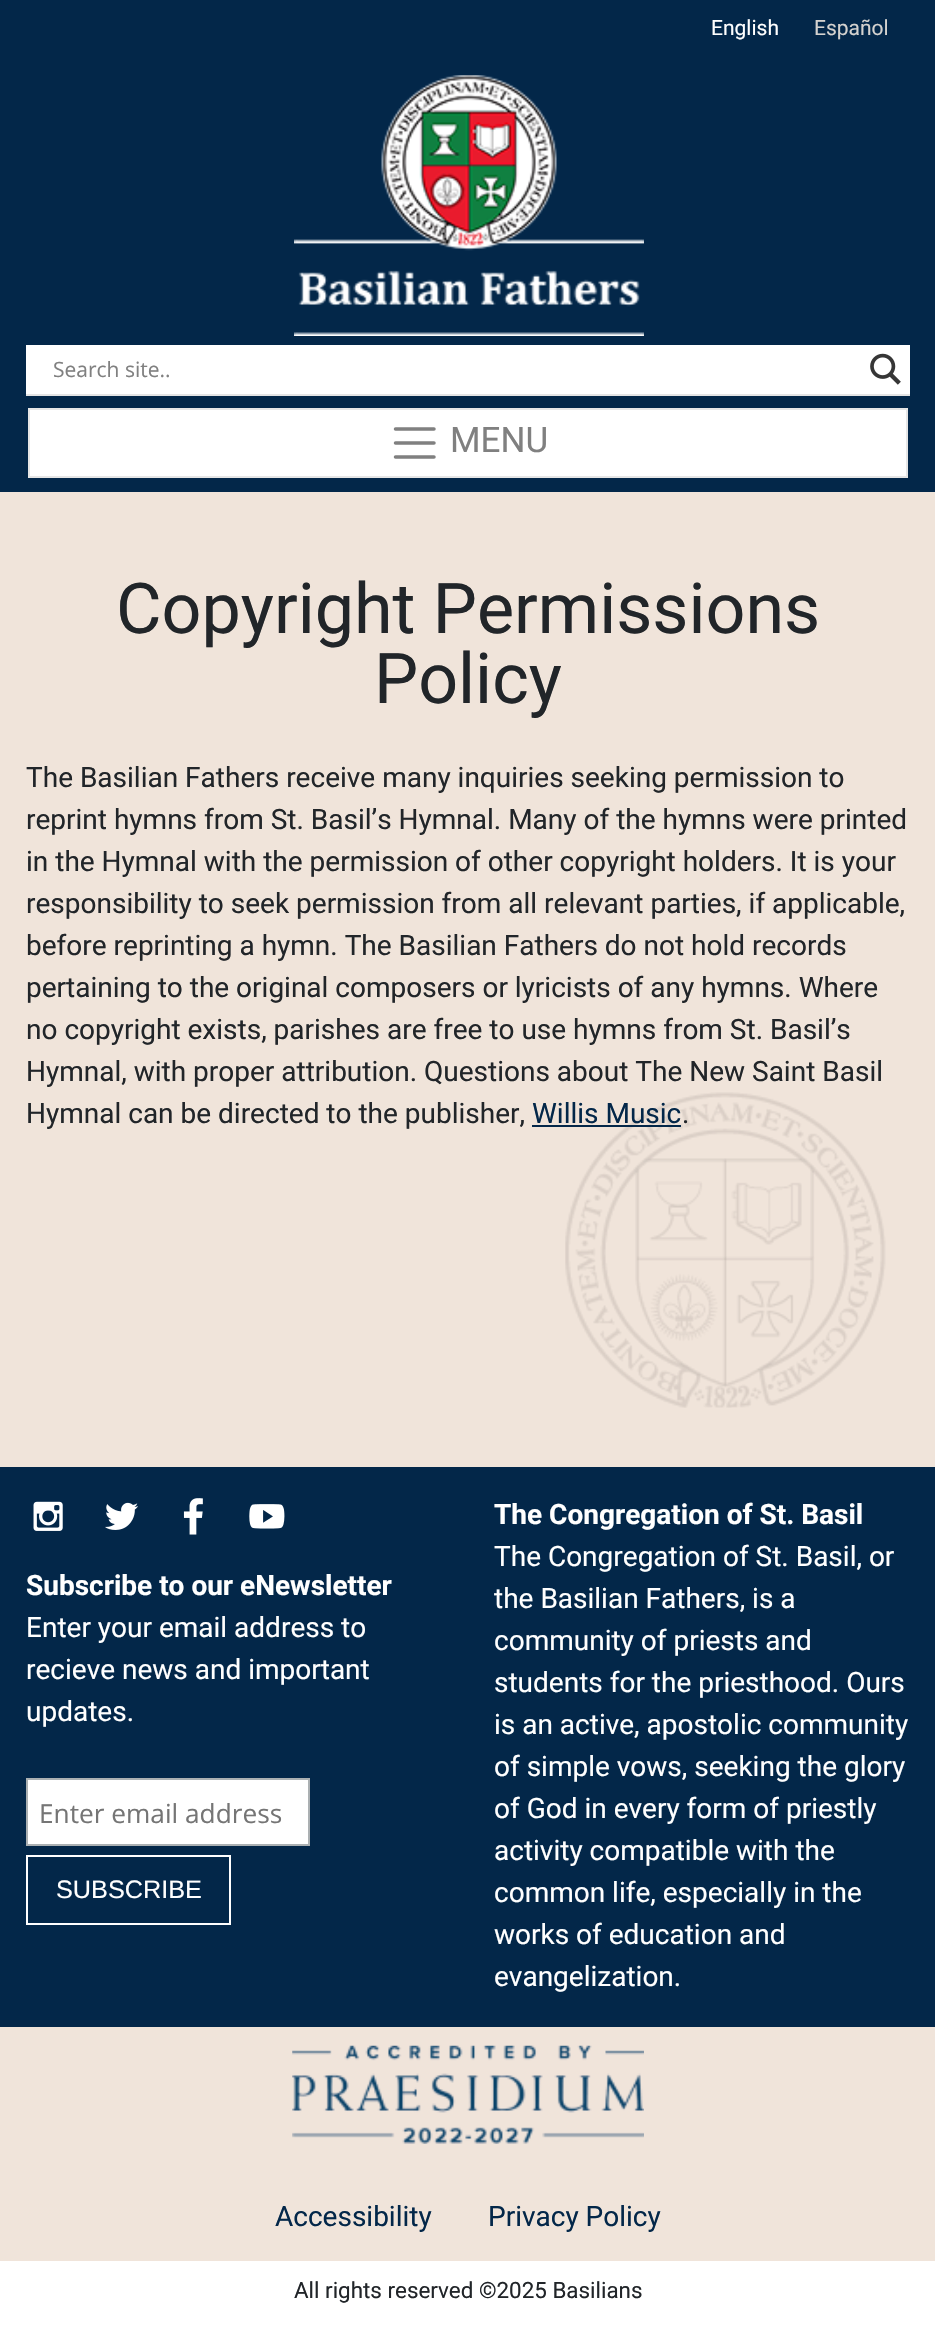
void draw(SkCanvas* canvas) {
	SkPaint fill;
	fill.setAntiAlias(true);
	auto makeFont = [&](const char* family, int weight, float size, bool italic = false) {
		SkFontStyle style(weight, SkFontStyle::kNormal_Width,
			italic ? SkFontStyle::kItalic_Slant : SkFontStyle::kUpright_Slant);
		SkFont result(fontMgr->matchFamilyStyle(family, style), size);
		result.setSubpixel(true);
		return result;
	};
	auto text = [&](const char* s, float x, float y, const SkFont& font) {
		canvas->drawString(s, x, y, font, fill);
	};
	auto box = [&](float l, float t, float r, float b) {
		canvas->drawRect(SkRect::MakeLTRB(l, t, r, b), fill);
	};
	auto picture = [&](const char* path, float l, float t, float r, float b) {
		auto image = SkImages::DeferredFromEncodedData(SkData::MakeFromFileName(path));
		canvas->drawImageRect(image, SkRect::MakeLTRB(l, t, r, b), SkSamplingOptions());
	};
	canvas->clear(0xFFFFFFFF);
	fill.setColor(0xFF032749);
	box(0, 0, 935, 492);
	picture("image0.png", 294, 75, 644, 336);
	fill.setColor(0xFFE4E4E4);
	canvas->drawPath(SkPathBuilder().moveTo(26, 347).lineTo(26, 396).lineTo(910, 396).lineTo(910, 394).lineTo(26, 394).close().detach(), fill);
	fill.setColor(0xFFFFFFFF);
	box(26, 345, 910, 394);
	picture("image1.png", 870, 353, 901, 385);
	canvas->drawRect(SkRect::MakeLTRB(29, 409, 907, 477), fill);
	fill.setStyle(SkPaint::kStroke_Style);
	fill.setStrokeWidth(2);
	fill.setColor(0xFFE6E6E6);
	canvas->drawRect(SkRect::MakeLTRB(29, 409, 907, 477), fill);
	fill.setStrokeWidth(3.5f);
	fill.setStrokeCap(SkPaint::kRound_Cap);
	fill.setColor(0xFF808080);
	canvas->drawPath(SkPathBuilder().moveTo(395.5f, 429).lineTo(434, 429).moveTo(395.5f, 443).lineTo(434, 443).moveTo(395.5f, 457).lineTo(434, 457).detach(), fill);
	fill.setStyle(SkPaint::kFill_Style);
	fill.setColor(0xFFF0E4DA);
	box(0, 492, 935, 1467);
	picture("image2.png", 565, 1092, 886, 1408);
	fill.setColor(0xFF032749);
	box(532, 1125, 681, 1127);
	box(0, 1467, 935, 2027);
	picture("image3.png", 33, 1501, 63, 1531);
	picture("image4.png", 105, 1502, 138, 1530);
	picture("image5.png", 183, 1498, 203, 1535);
	picture("image6.png", 249, 1504, 285, 1529);
	fill.setColor(0xFFFFFFFF);
	canvas->drawRect(SkRect::MakeLTRB(27, 1779, 309, 1845), fill);
	fill.setStyle(SkPaint::kStroke_Style);
	fill.setStrokeWidth(2);
	fill.setStrokeCap(SkPaint::kButt_Cap);
	fill.setColor(0xFFABB0B2);
	canvas->drawRect(SkRect::MakeLTRB(27, 1779, 309, 1845), fill);
	fill.setColor(0xFFFFFFFF);
	canvas->drawRect(SkRect::MakeLTRB(27, 1856, 230, 1924), fill);
	fill.setStyle(SkPaint::kFill_Style);
	fill.setColor(0xFFF0E4DA);
	box(0, 2027, 935, 2261);
	picture("image7.png", 292, 2045, 644, 2144);
	auto font1 = makeFont("Roboto", 400, 21);
	fill.setColor(0xFFFFFFFF);
	text("English", 711, 35, font1);
	fill.setColor(0xFFD4D2CF);
	text("Español", 814, 35, font1);
	auto font2 = makeFont("Open Sans", 400, 21);
	fill.setColor(0xFF808080);
	text("Search site..", 53, 377, font2);
	auto font3 = makeFont("Roboto", 400, 35);
	text("MENU", 450, 452, font3);
	auto font4 = makeFont("Roboto", 400, 70);
	fill.setColor(0xFF212529);
	text("Copyright Permissions", 116, 633, font4);
	text("Policy", 374, 703, font4);
	auto font5 = makeFont("Roboto", 400, 28);
	text("The Basilian Fathers receive many inquiries seeking permission to", 26, 787, font5);
	text("reprint hymns from St. Basil’s Hymnal. Many of the hymns were printed", 26, 829, font5);
	text("in the Hymnal with the permission of other copyright holders. It is your", 26, 871, font5);
	text("responsibility to seek permission from all relevant parties, if applicable,", 26, 913, font5);
	text("before reprinting a hymn. The Basilian Fathers do not hold records", 26, 955, font5);
	text("pertaining to the original composers or lyricists of any hymns. Where", 26, 997, font5);
	text("no copyright exists, parishes are free to use hymns from St. Basil’s", 26, 1039, font5);
	text("Hymnal, with proper attribution. Questions about The New Saint Basil", 26, 1081, font5);
	text("Hymnal can be directed to the publisher,", 26, 1123, font5);
	fill.setColor(0xFF032749);
	text("Willis Music", 532, 1123, font5);
	fill.setColor(0xFF212529);
	text(".", 682, 1123, font5);
	auto font6 = makeFont("Roboto", 700, 28);
	fill.setColor(0xFFFFFFFF);
	text("Subscribe to our eNewsletter", 26, 1595, font6);
	text("Enter your email address to", 26, 1637, font5);
	text("recieve news and important", 26, 1679, font5);
	text("updates.", 26, 1721, font5);
	auto font7 = makeFont("Open Sans", 400, 26.25f);
	fill.setColor(0xFF757575);
	text("Enter email address", 39, 1823, font7);
	auto font8 = makeFont("Liberation Sans", 400, 25.25f);
	fill.setColor(0xFFFFFFFF);
	text("SUBSCRIBE", 56, 1898, font8);
	text("The Congregation of St. Basil", 494, 1524, font6);
	text("The Congregation of St. Basil, or", 494, 1566, font5);
	text("the Basilian Fathers, is a", 494, 1608, font5);
	text("community of priests and", 494, 1650, font5);
	text("students for the priesthood. Ours", 494, 1692, font5);
	text("is an active, apostolic community", 494, 1734, font5);
	text("of simple vows, seeking the glory", 494, 1776, font5);
	text("of God in every form of priestly", 494, 1818, font5);
	text("activity compatible with the", 494, 1860, font5);
	text("common life, especially in the", 494, 1902, font5);
	text("works of education and", 494, 1944, font5);
	text("evangelization.", 494, 1986, font5);
	fill.setColor(0xFF032749);
	text("Accessibility", 275, 2226, font5);
	text("Privacy Policy", 488, 2226, font5);
	auto font9 = makeFont("Roboto", 400, 22.4f);
	fill.setColor(0xFF212529);
	text("All rights reserved ©2025 Basilians", 294, 2298, font9);
}
